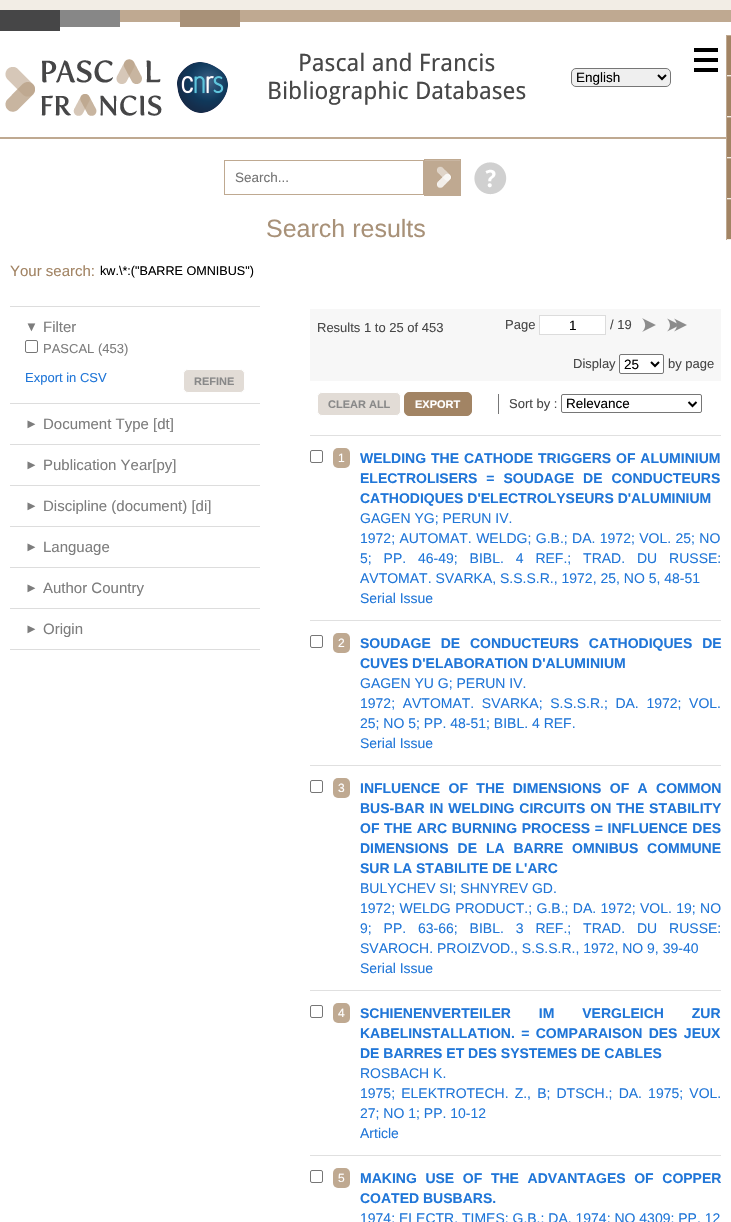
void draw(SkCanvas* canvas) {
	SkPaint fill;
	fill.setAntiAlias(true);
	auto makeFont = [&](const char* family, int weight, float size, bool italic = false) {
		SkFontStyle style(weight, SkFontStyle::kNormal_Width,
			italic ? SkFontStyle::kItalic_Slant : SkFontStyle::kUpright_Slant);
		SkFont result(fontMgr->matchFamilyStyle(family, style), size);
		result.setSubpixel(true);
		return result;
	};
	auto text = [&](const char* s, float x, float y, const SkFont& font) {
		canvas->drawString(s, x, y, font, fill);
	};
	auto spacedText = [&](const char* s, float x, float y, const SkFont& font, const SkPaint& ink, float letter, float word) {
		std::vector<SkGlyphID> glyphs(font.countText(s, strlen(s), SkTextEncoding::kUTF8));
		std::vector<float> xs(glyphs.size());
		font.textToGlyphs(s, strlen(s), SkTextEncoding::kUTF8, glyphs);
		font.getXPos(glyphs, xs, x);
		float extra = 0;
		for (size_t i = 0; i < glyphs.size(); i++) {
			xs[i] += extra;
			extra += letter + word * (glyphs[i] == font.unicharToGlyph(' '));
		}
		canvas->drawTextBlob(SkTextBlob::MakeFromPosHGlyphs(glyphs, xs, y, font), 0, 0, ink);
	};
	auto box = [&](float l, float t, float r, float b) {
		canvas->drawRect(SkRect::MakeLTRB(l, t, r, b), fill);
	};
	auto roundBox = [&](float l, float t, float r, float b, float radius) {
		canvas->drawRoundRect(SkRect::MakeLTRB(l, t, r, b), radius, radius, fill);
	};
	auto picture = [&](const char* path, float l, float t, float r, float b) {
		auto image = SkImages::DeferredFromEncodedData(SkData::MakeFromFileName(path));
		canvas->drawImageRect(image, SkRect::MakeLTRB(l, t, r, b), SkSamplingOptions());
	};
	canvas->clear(0xFFF2EDE5);
	fill.setColor(0xFFFFFFFF);
	box(0, 22, 731, 137);
	fill.setColor(0xFFBFA991);
	box(240, 10, 731, 22);
	box(0, 137, 731, 139);
	picture("image0.png", 0, 10, 240, 31);
	picture("image1.png", 5, 59, 162, 116);
	picture("image2.png", 177, 62, 228, 113);
	fill.setColor(0xFFEFEFEF);
	canvas->drawRoundRect(SkRect::MakeLTRB(571.5f, 68.5f, 670.5f, 86.5f), 4.5f, 4.5f, fill);
	fill.setStyle(SkPaint::kStroke_Style);
	fill.setStrokeWidth(1);
	fill.setColor(0xFF767676);
	canvas->drawRoundRect(SkRect::MakeLTRB(571.5f, 68.5f, 670.5f, 86.5f), 4.5f, 4.5f, fill);
	fill.setStrokeWidth(2);
	fill.setColor(0xFF000000);
	canvas->drawPath(SkPathBuilder().moveTo(658, 75).lineTo(662, 79).lineTo(666, 75).detach(), fill);
	fill.setStyle(SkPaint::kFill_Style);
	box(694, 68, 718, 72);
	box(694, 58, 718, 62);
	box(694, 48, 718, 52);
	fill.setColor(0xFFFFFFFF);
	box(0, 139, 731, 1222);
	fill.setColor(0xFFA28464);
	box(727, 35, 731, 240);
	fill.setColor(0xFFBFA991);
	box(726, 35, 731, 36);
	fill.setColor(0xFFF2EDE5);
	box(726, 75, 731, 76);
	fill.setColor(0xFFBFA991);
	box(726, 35, 727, 76);
	box(726, 76, 731, 77);
	fill.setColor(0xFFF2EDE5);
	box(726, 116, 731, 117);
	fill.setColor(0xFFBFA991);
	box(726, 76, 727, 117);
	box(726, 117, 731, 118);
	fill.setColor(0xFFF2EDE5);
	box(726, 157, 731, 158);
	fill.setColor(0xFFBFA991);
	box(726, 117, 727, 158);
	box(726, 158, 731, 159);
	fill.setColor(0xFFF2EDE5);
	box(726, 198, 731, 199);
	fill.setColor(0xFFBFA991);
	box(726, 158, 727, 199);
	box(726, 199, 731, 200);
	fill.setColor(0xFFF2EDE5);
	box(726, 239, 731, 240);
	fill.setColor(0xFFBFA991);
	box(726, 199, 727, 240);
	fill.setStyle(SkPaint::kStroke_Style);
	fill.setStrokeWidth(1);
	canvas->drawRect(SkRect::MakeLTRB(224.5f, 160.5f, 423.5f, 194.5f), fill);
	picture("image3.png", 425, 160, 460, 195);
	canvas->drawRect(SkRect::MakeLTRB(424.5f, 159.5f, 460.5f, 195.5f), fill);
	picture("image4.png", 474, 162, 507, 195);
	fill.setStyle(SkPaint::kFill_Style);
	fill.setColor(0xFFDDDDDD);
	box(10, 306, 260, 307);
	fill.setStyle(SkPaint::kStroke_Style);
	fill.setColor(0xFF767676);
	canvas->drawRoundRect(SkRect::MakeLTRB(25.5f, 340.5f, 37.5f, 352.5f), 1.5f, 1.5f, fill);
	fill.setStyle(SkPaint::kFill_Style);
	fill.setColor(0xFFE2DCD6);
	canvas->drawRoundRect(SkRect::MakeLTRB(183.5f, 369.5f, 244.5f, 392.5f), 4.5f, 4.5f, fill);
	fill.setStyle(SkPaint::kStroke_Style);
	fill.setColor(0xFFFFFFFF);
	canvas->drawRoundRect(SkRect::MakeLTRB(183.5f, 369.5f, 244.5f, 392.5f), 4.5f, 4.5f, fill);
	fill.setStyle(SkPaint::kFill_Style);
	fill.setColor(0xFFDDDDDD);
	box(10, 403, 260, 404);
	box(10, 444, 260, 445);
	box(10, 485, 260, 486);
	box(10, 526, 260, 527);
	box(10, 567, 260, 568);
	box(10, 608, 260, 609);
	box(10, 649, 260, 650);
	fill.setColor(0xFFF7F7F7);
	box(310, 309, 721, 381);
	fill.setColor(0xFFFFFFFF);
	canvas->drawRect(SkRect::MakeLTRB(539.5f, 315.5f, 605.5f, 334.5f), fill);
	fill.setStyle(SkPaint::kStroke_Style);
	fill.setColor(0xFFDCDCDC);
	canvas->drawRect(SkRect::MakeLTRB(539.5f, 315.5f, 605.5f, 334.5f), fill);
	picture("image5.png", 642, 318, 656, 332);
	picture("image6.png", 667, 318, 687, 332);
	fill.setStyle(SkPaint::kFill_Style);
	fill.setColor(0xFFFFFFFF);
	canvas->drawRoundRect(SkRect::MakeLTRB(619.5f, 354.5f, 663.5f, 373.5f), 1.5f, 1.5f, fill);
	fill.setStyle(SkPaint::kStroke_Style);
	fill.setColor(0xFF767676);
	canvas->drawRoundRect(SkRect::MakeLTRB(619.5f, 354.5f, 663.5f, 373.5f), 1.5f, 1.5f, fill);
	fill.setStrokeWidth(2);
	fill.setColor(0xFF000000);
	canvas->drawPath(SkPathBuilder().moveTo(651, 362).lineTo(655, 366).lineTo(659, 362).detach(), fill);
	fill.setStyle(SkPaint::kFill_Style);
	fill.setColor(0xFFE2DCD6);
	canvas->drawRoundRect(SkRect::MakeLTRB(317.5f, 392.5f, 400.5f, 415.5f), 4.5f, 4.5f, fill);
	fill.setStyle(SkPaint::kStroke_Style);
	fill.setStrokeWidth(1);
	fill.setColor(0xFFFFFFFF);
	canvas->drawRoundRect(SkRect::MakeLTRB(317.5f, 392.5f, 400.5f, 415.5f), 4.5f, 4.5f, fill);
	fill.setStyle(SkPaint::kFill_Style);
	fill.setColor(0xFFA28464);
	canvas->drawRoundRect(SkRect::MakeLTRB(404.5f, 392.5f, 471.5f, 415.5f), 4.5f, 4.5f, fill);
	fill.setStyle(SkPaint::kStroke_Style);
	canvas->drawRoundRect(SkRect::MakeLTRB(404.5f, 392.5f, 471.5f, 415.5f), 4.5f, 4.5f, fill);
	fill.setStyle(SkPaint::kFill_Style);
	fill.setColor(0xFF777778);
	box(498, 394, 499, 414);
	fill.setStyle(SkPaint::kStroke_Style);
	fill.setColor(0xFF767676);
	canvas->drawRoundRect(SkRect::MakeLTRB(561.5f, 394.5f, 701.5f, 412.5f), 1.5f, 1.5f, fill);
	fill.setStrokeWidth(2);
	fill.setColor(0xFF000000);
	canvas->drawPath(SkPathBuilder().moveTo(688.5f, 402).lineTo(692.5f, 406).lineTo(696.5f, 402).detach(), fill);
	fill.setStyle(SkPaint::kFill_Style);
	fill.setColor(0xFFE0E0E0);
	box(310, 435, 721, 436);
	fill.setStyle(SkPaint::kStroke_Style);
	fill.setStrokeWidth(1);
	fill.setColor(0xFF767676);
	canvas->drawRoundRect(SkRect::MakeLTRB(310.5f, 450.5f, 322.5f, 462.5f), 1.5f, 1.5f, fill);
	fill.setStyle(SkPaint::kFill_Style);
	fill.setColor(0xFFBFA991);
	roundBox(333, 448, 350, 468, 5);
	fill.setColor(0xFFE0E0E0);
	box(310, 620, 721, 621);
	fill.setStyle(SkPaint::kStroke_Style);
	fill.setColor(0xFF767676);
	canvas->drawRoundRect(SkRect::MakeLTRB(310.5f, 635.5f, 322.5f, 647.5f), 1.5f, 1.5f, fill);
	fill.setStyle(SkPaint::kFill_Style);
	fill.setColor(0xFFBFA991);
	roundBox(333, 633, 350, 653, 5);
	fill.setColor(0xFFE0E0E0);
	box(310, 765, 721, 766);
	fill.setStyle(SkPaint::kStroke_Style);
	fill.setColor(0xFF767676);
	canvas->drawRoundRect(SkRect::MakeLTRB(310.5f, 780.5f, 322.5f, 792.5f), 1.5f, 1.5f, fill);
	fill.setStyle(SkPaint::kFill_Style);
	fill.setColor(0xFFBFA991);
	roundBox(333, 778, 350, 798, 5);
	fill.setColor(0xFFE0E0E0);
	box(310, 990, 721, 991);
	fill.setStyle(SkPaint::kStroke_Style);
	fill.setColor(0xFF767676);
	canvas->drawRoundRect(SkRect::MakeLTRB(310.5f, 1005.5f, 322.5f, 1017.5f), 1.5f, 1.5f, fill);
	fill.setStyle(SkPaint::kFill_Style);
	fill.setColor(0xFFBFA991);
	roundBox(333, 1003, 350, 1023, 5);
	fill.setColor(0xFFE0E0E0);
	box(310, 1155, 721, 1156);
	fill.setStyle(SkPaint::kStroke_Style);
	fill.setColor(0xFF767676);
	canvas->drawRoundRect(SkRect::MakeLTRB(310.5f, 1170.5f, 322.5f, 1182.5f), 1.5f, 1.5f, fill);
	fill.setStyle(SkPaint::kFill_Style);
	fill.setColor(0xFFBFA991);
	roundBox(333, 1168, 350, 1188, 5);
	auto font1 = makeFont("Droid Sans", 400, 24);
	fill.setColor(0xFF474747);
	text("Pascal and Francis", 298, 71, font1);
	text("Bibliographic Databases", 267, 99, font1);
	auto font2 = makeFont("Liberation Sans", 400, 13.5f);
	fill.setColor(0xFF000000);
	text("English", 576, 82, font2);
	fill.setColor(0xFF757575);
	text("Search...", 235, 182, font2);
	auto font3 = makeFont("Liberation Sans", 400, 25);
	fill.setColor(0xFFA89178);
	text("Search results", 266, 237, font3);
	auto font4 = makeFont("Liberation Sans", 400, 15);
	fill.setColor(0xFFA28464);
	text("Your search:", 10, 276, font4);
	auto font5 = makeFont("Liberation Sans", 400, 12.6f);
	fill.setColor(0xFF000000);
	text("kw.\\*:(\"BARRE OMNIBUS\")", 100, 275, font5);
	auto font6 = makeFont("Liberation Sans", 400, 13);
	fill.setColor(0xFF7D7D7D);
	text("▼", 25, 331, font6);
	text("Filter", 43, 332, font4);
	text("PASCAL (453)", 43, 353, font6);
	fill.setColor(0xFF2076D8);
	text("Export in CSV", 25, 382, font6);
	auto font7 = makeFont("Liberation Sans", 700, 11);
	fill.setColor(0xFF898989);
	text("REFINE", 194, 385, font7);
	fill.setColor(0xFF7D7D7D);
	text("►", 25, 428, font6);
	text("Document Type [dt]", 43, 429, font4);
	text("►", 25, 469, font6);
	text("Publication Year[py]", 43, 470, font4);
	text("►", 25, 510, font6);
	text("Discipline (document) [di]", 43, 511, font4);
	text("►", 25, 551, font6);
	text("Language", 43, 552, font4);
	text("►", 25, 592, font6);
	text("Author Country", 43, 593, font4);
	text("►", 25, 633, font6);
	text("Origin", 43, 634, font4);
	fill.setColor(0xFF474747);
	text("Results 1 to 25 of 453", 317, 332, font6);
	text("Page", 505, 329, font6);
	fill.setColor(0xFF000000);
	text("1", 569, 330, font2);
	fill.setColor(0xFF474747);
	text("/ 19", 610, 329, font6);
	text("Display", 573, 368, font6);
	fill.setColor(0xFF000000);
	text("25", 624, 369, font2);
	fill.setColor(0xFF474747);
	text("by page", 668, 368, font6);
	fill.setColor(0xFF898989);
	text("CLEAR ALL", 328, 408, font7);
	fill.setColor(0xFFFFFFFF);
	text("EXPORT", 415, 408, font7);
	fill.setColor(0xFF474747);
	text("Sort by :", 509, 408, font6);
	fill.setColor(0xFF000000);
	text("Relevance", 566, 408, font2);
	auto font8 = makeFont("Liberation Sans", 400, 12);
	fill.setColor(0xFFFFFFFF);
	text("1", 338, 462, font8);
	auto font9 = makeFont("Liberation Sans", 700, 14);
	fill.setColor(0xFF2076D8);
	spacedText("WELDING THE CATHODE TRIGGERS OF ALUMINIUM", 360, 463, font9, fill, 0, 1);
	spacedText("ELECTROLISERS = SOUDAGE DE CONDUCTEURS", 360, 483, font9, fill, 0, 5);
	text("CATHODIQUES D'ELECTROLYSEURS D'ALUMINIUM", 360, 503, font9);
	auto font10 = makeFont("Liberation Sans", 400, 14);
	text("GAGEN YG; PERUN IV.", 360, 523, font10);
	spacedText("1972; AUTOMAT. WELDG; G.B.; DA. 1972; VOL. 25; NO", 360, 543, font10, fill, 0, 0.5f);
	spacedText("5; PP. 46-49; BIBL. 4 REF.; TRAD. DU RUSSE:", 360, 563, font10, fill, 0, 8);
	text("AVTOMAT. SVARKA, S.S.S.R., 1972, 25, NO 5, 48-51", 360, 583, font10);
	text("Serial Issue", 360, 603, font10);
	fill.setColor(0xFFFFFFFF);
	text("2", 338, 647, font8);
	fill.setColor(0xFF2076D8);
	spacedText("SOUDAGE DE CONDUCTEURS CATHODIQUES DE", 360, 648, font9, fill, 0, 6);
	text("CUVES D'ELABORATION D'ALUMINIUM", 360, 668, font9);
	text("GAGEN YU G; PERUN IV.", 360, 688, font10);
	spacedText("1972; AVTOMAT. SVARKA; S.S.S.R.; DA. 1972; VOL.", 360, 708, font10, fill, 0, 3.75f);
	text("25; NO 5; PP. 48-51; BIBL. 4 REF.", 360, 728, font10);
	text("Serial Issue", 360, 748, font10);
	fill.setColor(0xFFFFFFFF);
	text("3", 338, 792, font8);
	fill.setColor(0xFF2076D8);
	spacedText("INFLUENCE OF THE DIMENSIONS OF A COMMON", 360, 793, font9, fill, 0, 4.5f);
	spacedText("BUS-BAR IN WELDING CIRCUITS ON THE STABILITY", 360, 813, font9, fill, 0, 1);
	spacedText("OF THE ARC BURNING PROCESS = INFLUENCE DES", 360, 833, font9, fill, 0, 0.75f);
	spacedText("DIMENSIONS DE LA BARRE OMNIBUS COMMUNE", 360, 853, font9, fill, 0, 5);
	text("SUR LA STABILITE DE L'ARC", 360, 873, font9);
	text("BULYCHEV SI; SHNYREV GD.", 360, 893, font10);
	spacedText("1972; WELDG PRODUCT.; G.B.; DA. 1972; VOL. 19; NO", 360, 913, font10, fill, 0, 0.5f);
	spacedText("9; PP. 63-66; BIBL. 3 REF.; TRAD. DU RUSSE:", 360, 933, font10, fill, 0, 8);
	text("SVAROCH. PROIZVOD., S.S.S.R., 1972, NO 9, 39-40", 360, 953, font10);
	text("Serial Issue", 360, 973, font10);
	fill.setColor(0xFFFFFFFF);
	text("4", 338, 1017, font8);
	fill.setColor(0xFF2076D8);
	spacedText("SCHIENENVERTEILER IM VERGLEICH ZUR", 360, 1018, font9, fill, 0, 24);
	spacedText("KABELINSTALLATION. = COMPARAISON DES JEUX", 360, 1038, font9, fill, 0, 2.5f);
	text("DE BARRES ET DES SYSTEMES DE CABLES", 360, 1058, font9);
	text("ROSBACH K.", 360, 1078, font10);
	spacedText("1975; ELEKTROTECH. Z., B; DTSCH.; DA. 1975; VOL.", 360, 1098, font10, fill, 0, 2.25f);
	text("27; NO 1; PP. 10-12", 360, 1118, font10);
	text("Article", 360, 1138, font10);
	fill.setColor(0xFFFFFFFF);
	text("5", 338, 1182, font8);
	fill.setColor(0xFF2076D8);
	spacedText("MAKING USE OF THE ADVANTAGES OF COPPER", 360, 1183, font9, fill, 0, 4.75f);
	text("COATED BUSBARS.", 360, 1203, font9);
	text("1974; ELECTR. TIMES; G.B.; DA. 1974; NO 4309; PP. 12", 360, 1223, font10);
}
